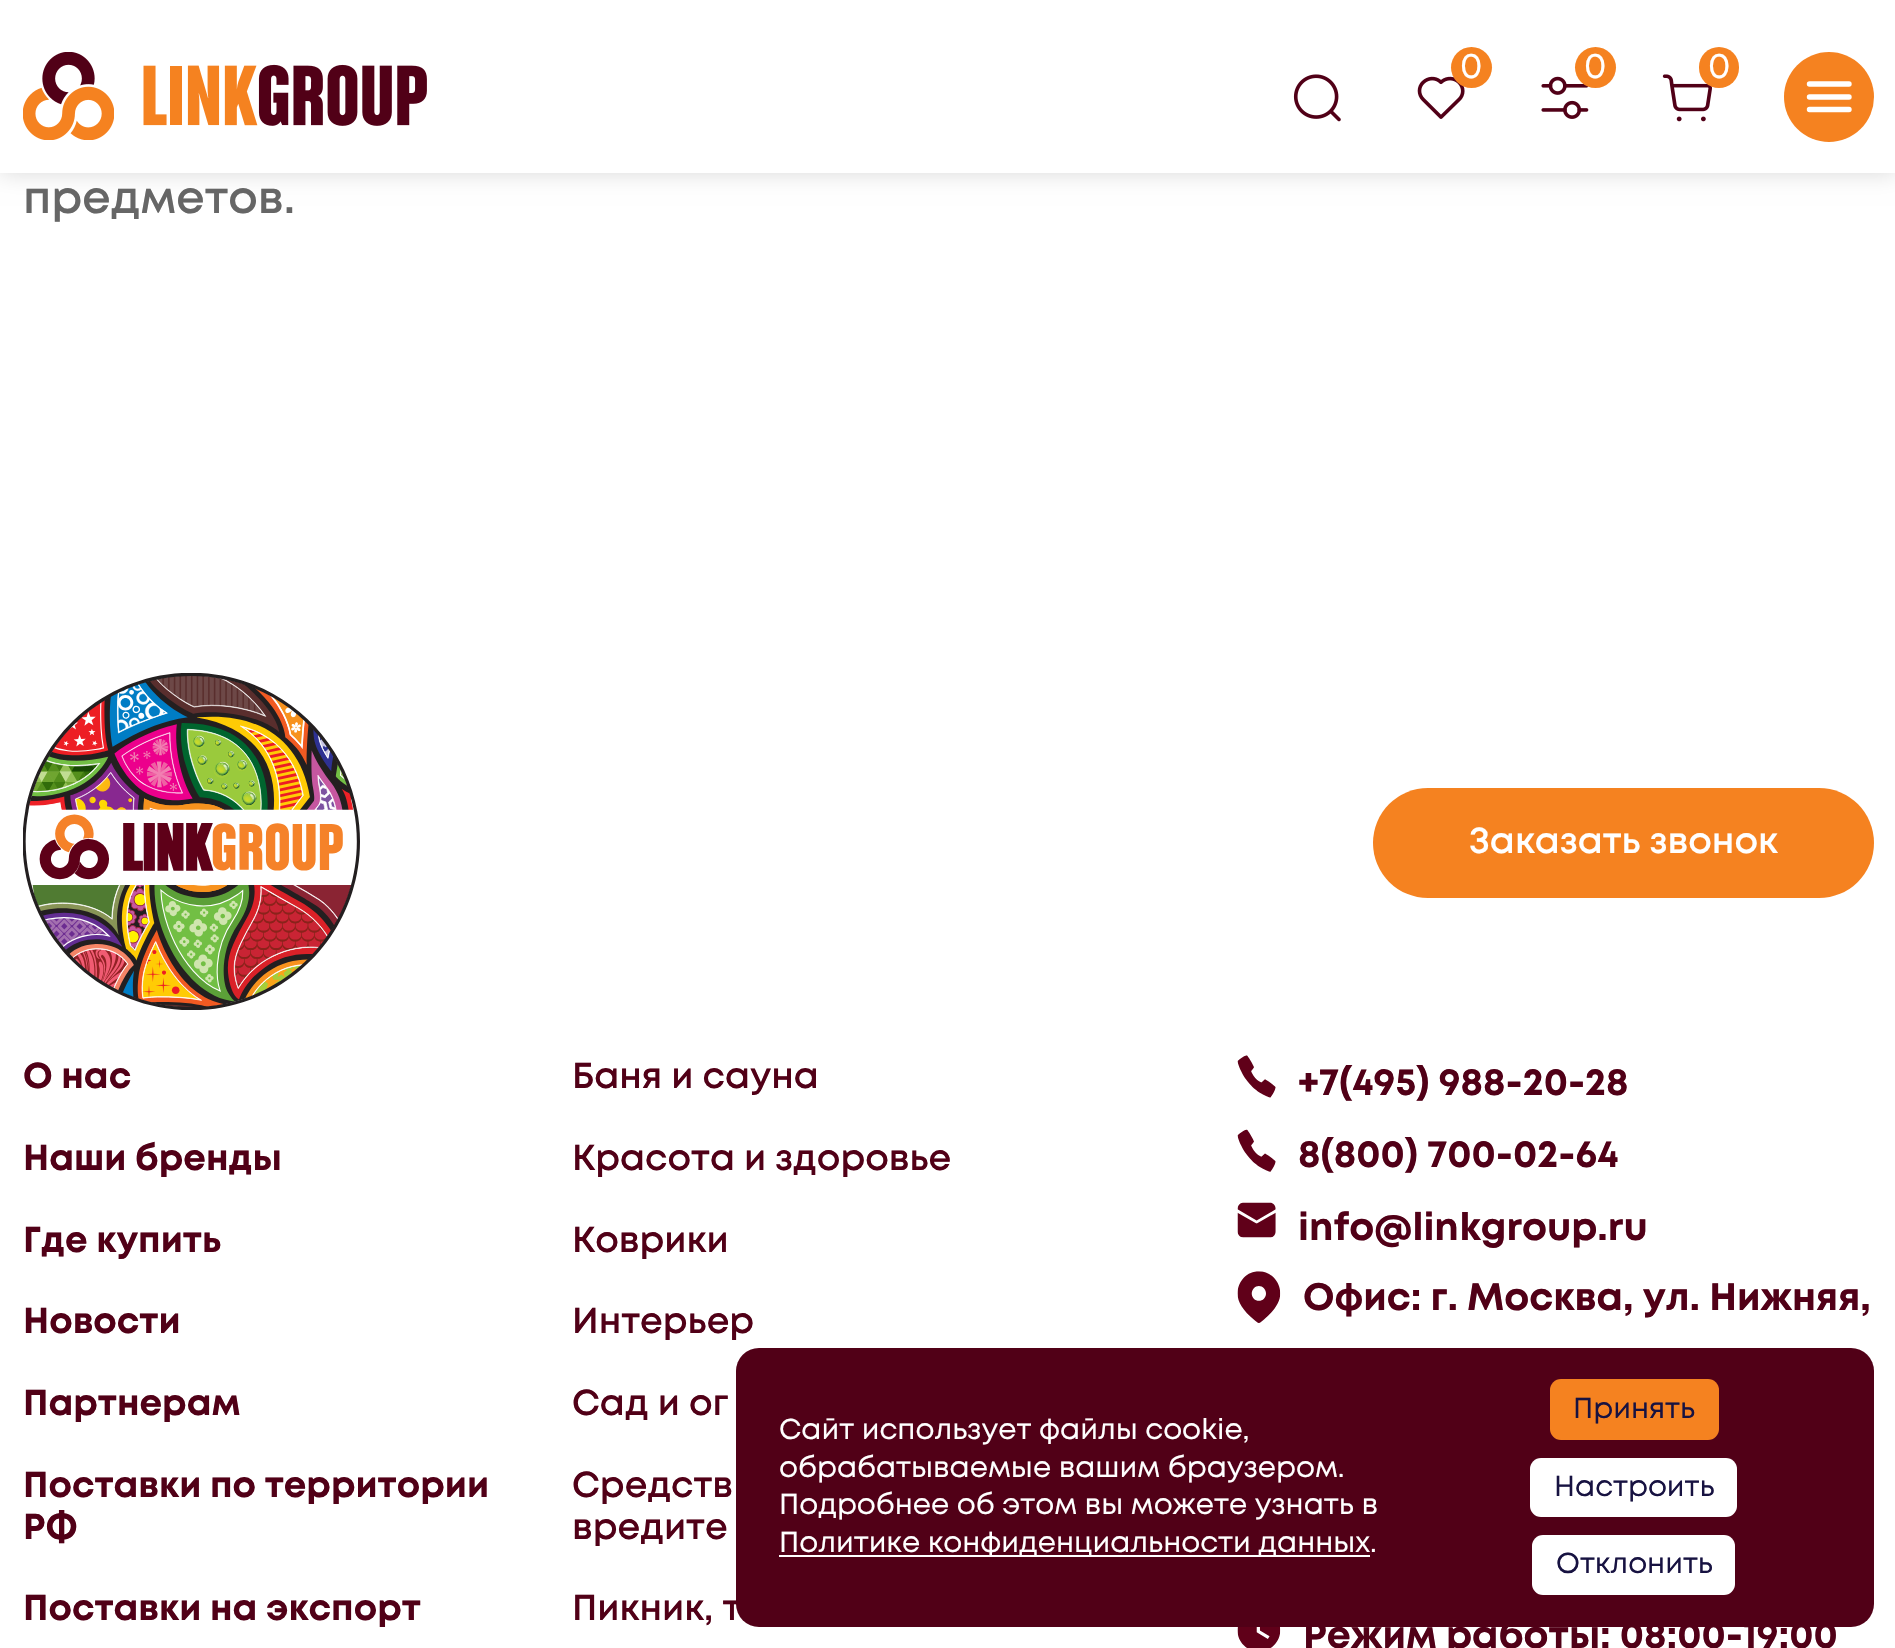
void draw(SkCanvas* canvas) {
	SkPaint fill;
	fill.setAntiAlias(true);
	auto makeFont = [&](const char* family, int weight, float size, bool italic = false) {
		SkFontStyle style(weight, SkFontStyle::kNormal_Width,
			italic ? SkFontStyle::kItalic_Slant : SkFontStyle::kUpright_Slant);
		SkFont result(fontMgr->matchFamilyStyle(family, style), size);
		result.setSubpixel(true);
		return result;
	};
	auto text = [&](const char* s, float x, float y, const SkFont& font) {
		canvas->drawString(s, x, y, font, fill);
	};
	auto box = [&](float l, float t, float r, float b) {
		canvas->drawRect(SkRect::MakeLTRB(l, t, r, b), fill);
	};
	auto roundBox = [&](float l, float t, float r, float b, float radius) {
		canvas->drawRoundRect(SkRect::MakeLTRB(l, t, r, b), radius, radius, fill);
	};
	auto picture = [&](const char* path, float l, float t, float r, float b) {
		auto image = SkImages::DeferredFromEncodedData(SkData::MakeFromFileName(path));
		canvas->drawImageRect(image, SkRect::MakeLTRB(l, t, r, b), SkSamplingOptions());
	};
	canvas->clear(0xFFFFFFFF);
	fill.setColor(0x26000000);
	fill.setMaskFilter(SkMaskFilter::MakeBlur(kNormal_SkBlurStyle, 11));
	canvas->drawRect(SkRect::MakeLTRB(0, 0, 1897, 173), fill);
	fill.setMaskFilter(nullptr);
	fill.setColor(0xFFFFFFFF);
	box(0, 0, 1895, 173);
	picture("image0.png", 23, 52, 427, 140);
	picture("image1.png", 1417, 76, 1465, 119);
	fill.setColor(0xFFF58220);
	canvas->drawCircle(1471.5f, 67.5f, 20.5f, fill);
	picture("image2.png", 1541, 76, 1589, 119);
	canvas->drawCircle(1595.5f, 67.5f, 20.5f, fill);
	picture("image3.png", 1662, 74, 1712, 122);
	roundBox(1699, 47, 1739, 88, 20);
	picture("image4.png", 1293, 74, 1341, 122);
	canvas->drawCircle(1829, 97, 45, fill);
	fill.setStyle(SkPaint::kStroke_Style);
	fill.setStrokeWidth(5.4f);
	fill.setStrokeCap(SkPaint::kRound_Cap);
	fill.setColor(0xFFFFFFFF);
	canvas->drawPath(SkPathBuilder().moveTo(1809.5f, 84).lineTo(1849, 84).moveTo(1809.5f, 97).lineTo(1849, 97).moveTo(1809.5f, 109.5f).lineTo(1849, 109.5f).detach(), fill);
	picture("image5.png", 23, 673, 360, 1010);
	fill.setStyle(SkPaint::kFill_Style);
	fill.setColor(0xFFF58220);
	roundBox(1373, 788, 1874, 898, 55);
	picture("image6.png", 1237, 1055, 1276, 1098);
	picture("image7.png", 1237, 1129, 1276, 1172);
	picture("image8.png", 1237, 1202, 1276, 1238);
	picture("image9.png", 1237, 1271, 1281, 1323);
	picture("image10.png", 1237, 1627, 1281, 1648);
	fill.setColor(0xFF510017);
	roundBox(736, 1348, 1874, 1627, 23);
	fill.setColor(0xFFFFFFFF);
	box(779, 1555, 1370, 1557);
	fill.setColor(0xFFF58220);
	roundBox(1550, 1379, 1719, 1440, 11);
	fill.setColor(0xFFFFFFFF);
	roundBox(1530, 1458, 1737, 1517, 11);
	roundBox(1532, 1535, 1735, 1595, 11);
	auto font1 = makeFont("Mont", 400, 36);
	text("0", 1460, 78, font1);
	text("0", 1584, 78, font1);
	text("0", 1708, 78, font1);
	auto font2 = makeFont("Mont", 600, 45);
	fill.setColor(0xFF666666);
	text("предметов.", 23, 213, font2);
	auto font3 = makeFont("Mont", 600, 36);
	fill.setColor(0xFFFFFFFF);
	text("Заказать звонок", 1469, 853, font3);
	auto font4 = makeFont("Mont", 700, 36);
	fill.setColor(0xFF510017);
	text("О нас", 23, 1088, font4);
	text("Наши бренды", 23, 1170, font4);
	text("Где купить", 23, 1252, font4);
	text("Новости", 23, 1333, font4);
	text("Партнерам", 23, 1415, font4);
	text("Поставки по территории", 23, 1497, font4);
	text("РФ", 23, 1539, font4);
	text("Поставки на экспорт", 23, 1620, font4);
	text("Баня и сауна", 572, 1088, font3);
	text("Красота и здоровье", 572, 1170, font3);
	text("Коврики", 572, 1252, font3);
	text("Интерьер", 572, 1333, font3);
	text("Сад и ог", 572, 1415, font3);
	text("Средств", 572, 1497, font3);
	text("вредите", 572, 1539, font3);
	text("Пикник, т", 572, 1620, font3);
	auto font5 = makeFont("Mont", 700, 38.25f);
	text("+7(495) 988-20-28", 1298, 1095, font5);
	text("8(800) 700-02-64", 1298, 1167, font5);
	text("info@linkgroup.ru", 1298, 1240, font5);
	text("Офис: г. Москва, ул. Нижняя,", 1303, 1310, font5);
	text("Режим работы: 08:00-19:00", 1303, 1648, font5);
	auto font6 = makeFont("Mont", 400, 28.8f);
	fill.setColor(0xFFFFFFFF);
	text("Сайт использует файлы cookie,", 779, 1439, font6);
	text("обрабатываемые вашим браузером.", 779, 1477, font6);
	text("Подробнее об этом вы можете узнать в", 779, 1514, font6);
	text("Политике конфиденциальности данных.", 779, 1552, font6);
	fill.setColor(0xFF171241);
	text("Принять", 1573, 1418, font6);
	text("Настроить", 1554, 1496, font6);
	text("Отклонить", 1556, 1573, font6);
}
